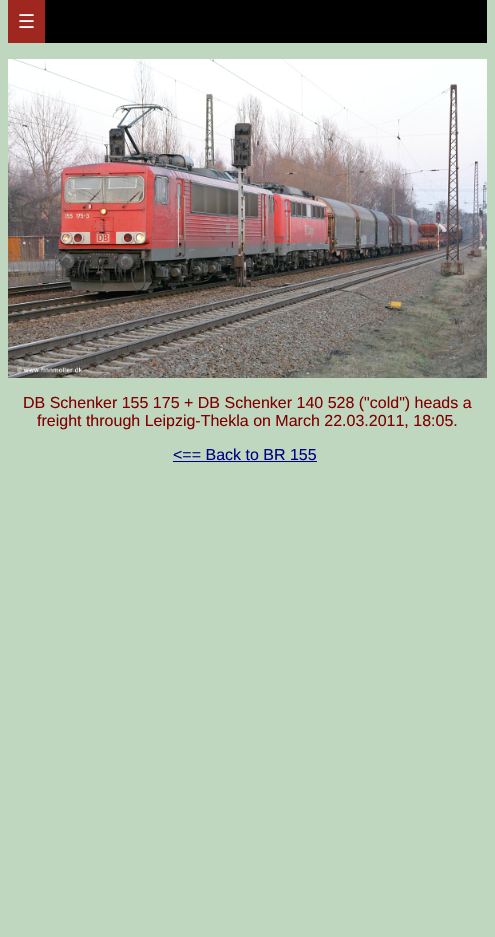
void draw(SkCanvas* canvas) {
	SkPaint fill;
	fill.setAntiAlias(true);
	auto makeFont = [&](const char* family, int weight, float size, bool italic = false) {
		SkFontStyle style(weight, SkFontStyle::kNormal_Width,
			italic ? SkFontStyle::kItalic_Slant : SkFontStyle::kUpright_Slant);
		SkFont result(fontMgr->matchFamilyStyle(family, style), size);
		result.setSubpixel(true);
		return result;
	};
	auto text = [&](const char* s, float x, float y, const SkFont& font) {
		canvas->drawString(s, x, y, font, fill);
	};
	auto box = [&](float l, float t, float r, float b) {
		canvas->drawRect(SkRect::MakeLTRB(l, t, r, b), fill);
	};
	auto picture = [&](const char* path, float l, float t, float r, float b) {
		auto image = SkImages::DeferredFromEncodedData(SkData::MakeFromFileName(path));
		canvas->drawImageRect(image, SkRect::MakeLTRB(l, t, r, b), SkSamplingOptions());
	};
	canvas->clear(0xFFBFD7BF);
	fill.setColor(0xFF000000);
	box(45, 0, 487, 43);
	fill.setColor(0xFFA02620);
	box(8, 0, 45, 43);
	picture("image0.png", 8, 59, 487, 378);
	fill.setColor(0xFF000080);
	box(173, 461, 317, 462);
	auto font1 = makeFont("DejaVu Sans", 400, 19);
	fill.setColor(0xFFFFFFFF);
	text("☰", 18, 28, font1);
	auto font2 = makeFont("Liberation Sans", 400, 16);
	fill.setColor(0xFF800000);
	text("DB Schenker 155 175 + DB Schenker 140 528 (\"cold\") heads a", 23, 408, font2);
	text("freight through Leipzig-Thekla on March 22.03.2011, 18:05.", 37, 426, font2);
	fill.setColor(0xFF000080);
	text("<== Back to BR 155", 173, 460, font2);
}
